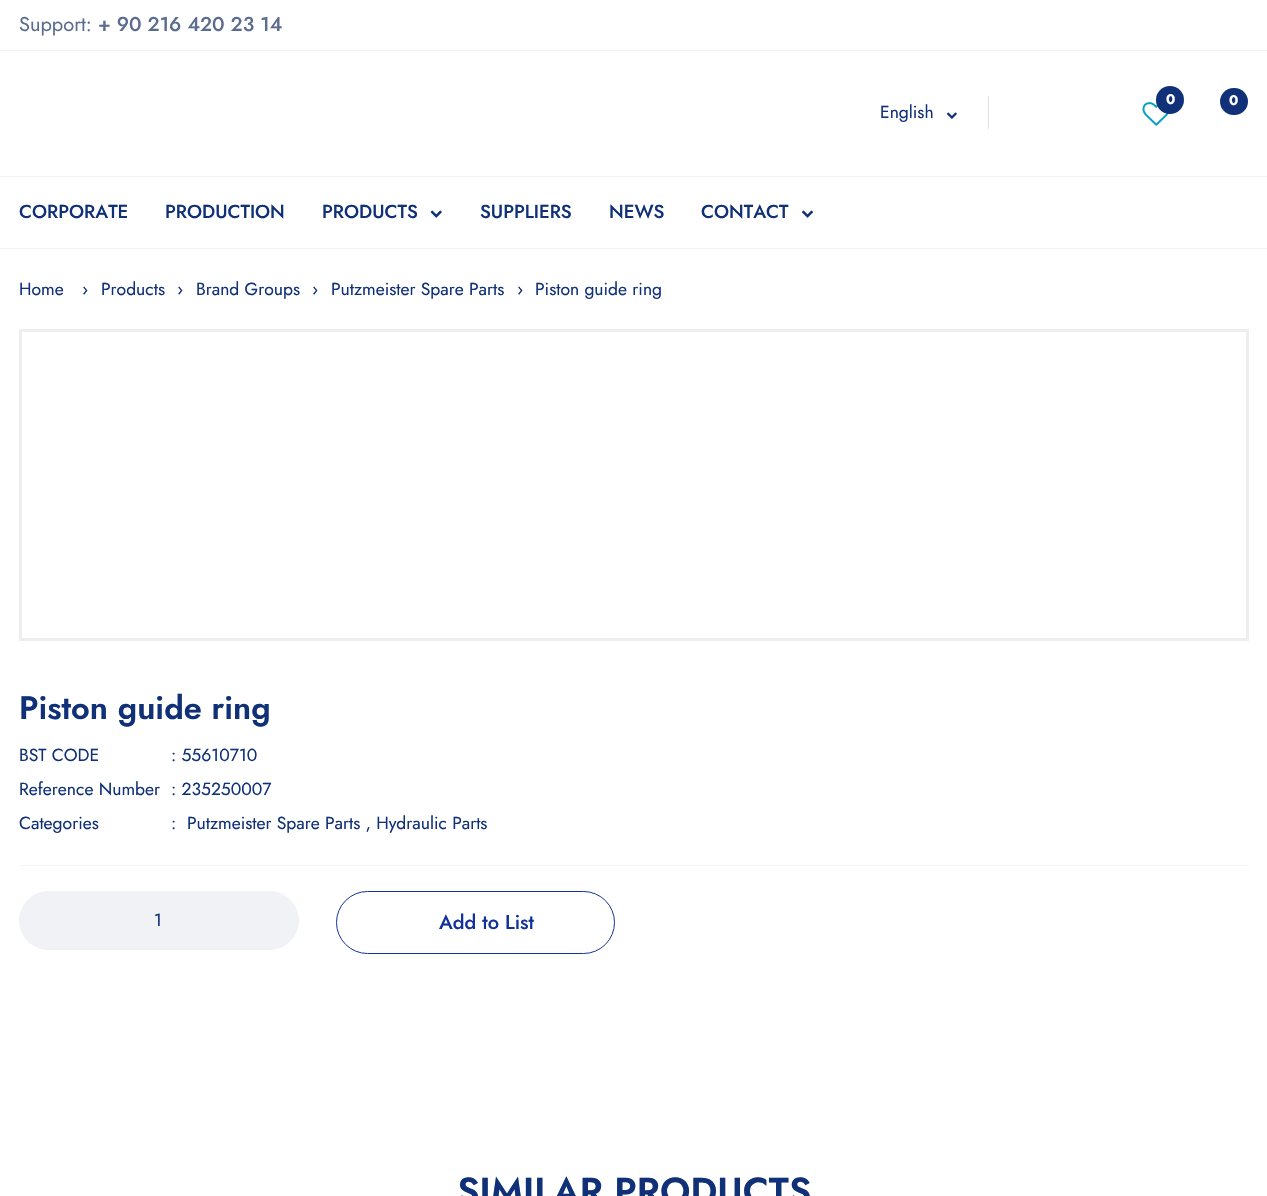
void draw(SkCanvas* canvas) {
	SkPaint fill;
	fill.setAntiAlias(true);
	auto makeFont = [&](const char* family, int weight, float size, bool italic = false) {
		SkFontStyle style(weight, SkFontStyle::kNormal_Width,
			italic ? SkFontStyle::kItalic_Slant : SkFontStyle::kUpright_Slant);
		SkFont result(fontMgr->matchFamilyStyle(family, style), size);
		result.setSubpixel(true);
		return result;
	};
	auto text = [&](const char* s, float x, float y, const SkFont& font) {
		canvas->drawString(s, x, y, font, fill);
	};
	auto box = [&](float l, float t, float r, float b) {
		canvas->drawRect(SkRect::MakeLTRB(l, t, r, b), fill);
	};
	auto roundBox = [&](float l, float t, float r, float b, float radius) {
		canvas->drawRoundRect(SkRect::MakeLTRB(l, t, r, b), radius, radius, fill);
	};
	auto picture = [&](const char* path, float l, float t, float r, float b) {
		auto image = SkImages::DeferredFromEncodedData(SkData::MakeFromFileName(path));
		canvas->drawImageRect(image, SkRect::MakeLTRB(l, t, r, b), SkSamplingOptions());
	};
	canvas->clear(0xFFFFFFFF);
	fill.setColor(0xFFF0F2F5);
	box(0, 50, 1267, 51);
	picture("image0.png", 1142, 102, 1169, 126);
	fill.setColor(0xFF103178);
	canvas->drawCircle(1170, 100, 14, fill);
	roundBox(1220, 88, 1248, 115, 13.5f);
	picture("image1.png", 946, 112, 957, 119);
	fill.setColor(0xFFD9DEE8);
	box(988, 96, 989, 129);
	fill.setColor(0xFFF0F2F5);
	box(0, 176, 1267, 177);
	box(0, 248, 1267, 249);
	picture("image2.png", 430, 210, 442, 218);
	picture("image3.png", 801, 210, 814, 218);
	fill.setStyle(SkPaint::kStroke_Style);
	fill.setStrokeWidth(3);
	fill.setColor(0xFFEEEEEE);
	canvas->drawRect(SkRect::MakeLTRB(20.5f, 330.5f, 1247.5f, 639.5f), fill);
	fill.setStyle(SkPaint::kFill_Style);
	fill.setColor(0xFFF0F2F5);
	box(19, 865, 1249, 866);
	canvas->drawRoundRect(SkRect::MakeLTRB(19.5f, 891.5f, 298.5f, 949.5f), 29, 29, fill);
	fill.setStyle(SkPaint::kStroke_Style);
	fill.setStrokeWidth(1);
	canvas->drawRoundRect(SkRect::MakeLTRB(19.5f, 891.5f, 298.5f, 949.5f), 29, 29, fill);
	fill.setColor(0xFF10319C);
	canvas->drawRoundRect(SkRect::MakeLTRB(336.5f, 891.5f, 614.5f, 953.5f), 31, 31, fill);
	auto font1 = makeFont("Jost", 400, 20);
	fill.setStyle(SkPaint::kFill_Style);
	fill.setColor(0xFF5B6C8F);
	text("Support:", 19, 31, font1);
	auto font2 = makeFont("Jost", 500, 20);
	text("+ 90 216 420 23 14", 98, 31, font2);
	auto font3 = makeFont("Jost", 700, 14);
	fill.setColor(0xFFFFFFFF);
	text("0", 1166, 104, font3);
	text("0", 1229, 105, font3);
	auto font4 = makeFont("Jost", 400, 17.5f);
	fill.setColor(0xFF103178);
	text("English", 880, 118, font4);
	auto font5 = makeFont("Jost", 500, 18.75f);
	text("CORPORATE", 19, 218, font5);
	text("PRODUCTION", 165, 218, font5);
	text("PRODUCTS", 322, 218, font5);
	text("SUPPLIERS", 480, 218, font5);
	text("NEWS", 609, 218, font5);
	text("CONTACT", 701, 218, font5);
	text("Home", 19, 295, font4);
	text("›", 82, 295, font4);
	text("Products", 101, 295, font4);
	text("›", 177, 295, font4);
	text("Brand Groups", 196, 295, font4);
	text("›", 312, 295, font4);
	text("Putzmeister Spare Parts", 331, 295, font4);
	text("›", 517, 295, font4);
	text("Piston guide ring", 535, 295, font4);
	auto font6 = makeFont("Jost", 600, 32.5f);
	text("Piston guide ring", 19, 719, font6);
	text("BST CODE", 19, 761, font4);
	text(": 55610710", 171, 761, font4);
	text("Reference Number", 19, 795, font4);
	text(": 235250007", 171, 795, font4);
	text("Categories", 19, 829, font4);
	text(":", 171, 829, font4);
	text("Putzmeister Spare Parts , Hydraulic Parts", 187, 829, font4);
	text("1", 154, 926, font4);
	fill.setColor(0xFF10319C);
	text("Add to List", 439, 929, font2);
	auto font7 = makeFont("Jost", 600, 37.5f);
	fill.setColor(0xFF103178);
	text("SIMILAR PRODUCTS", 457, 1204, font7);
}
